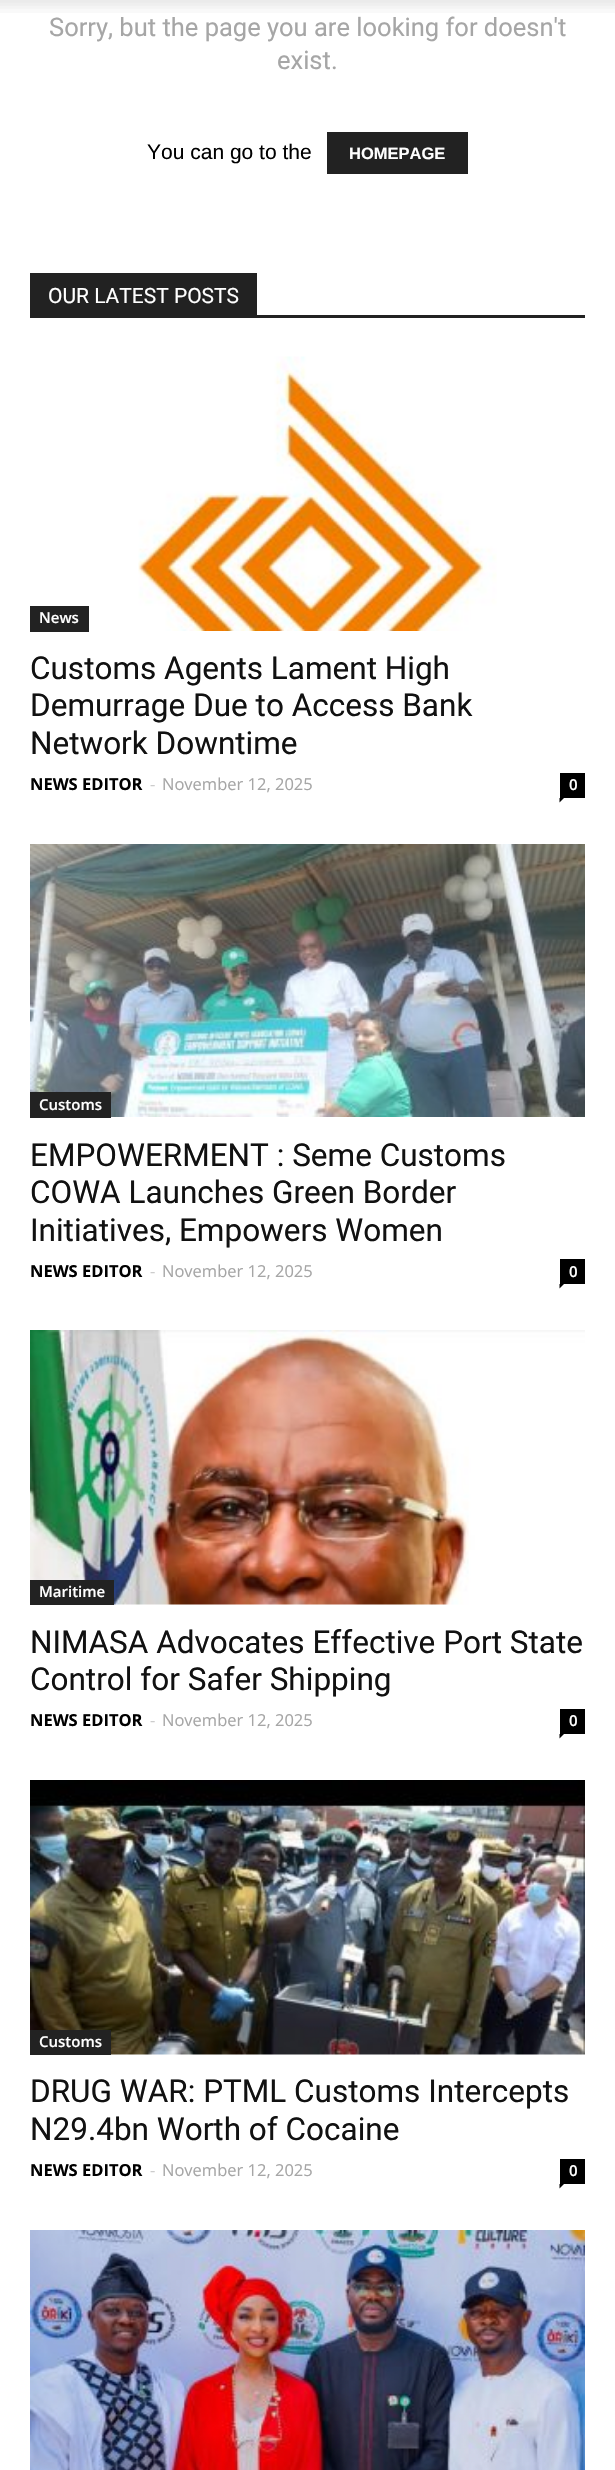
void draw(SkCanvas* canvas) {
	SkPaint fill;
	fill.setAntiAlias(true);
	auto makeFont = [&](const char* family, int weight, float size, bool italic = false) {
		SkFontStyle style(weight, SkFontStyle::kNormal_Width,
			italic ? SkFontStyle::kItalic_Slant : SkFontStyle::kUpright_Slant);
		SkFont result(fontMgr->matchFamilyStyle(family, style), size);
		result.setSubpixel(true);
		return result;
	};
	auto text = [&](const char* s, float x, float y, const SkFont& font) {
		canvas->drawString(s, x, y, font, fill);
	};
	auto box = [&](float l, float t, float r, float b) {
		canvas->drawRect(SkRect::MakeLTRB(l, t, r, b), fill);
	};
	auto picture = [&](const char* path, float l, float t, float r, float b) {
		auto image = SkImages::DeferredFromEncodedData(SkData::MakeFromFileName(path));
		canvas->drawImageRect(image, SkRect::MakeLTRB(l, t, r, b), SkSamplingOptions());
	};
	canvas->clear(0xFFFFFFFF);
	picture("image0.png", 0, 0, 615, 13);
	fill.setColor(0xFF222222);
	box(327, 132, 468, 174);
	box(30, 315, 585, 318);
	box(30, 273, 257, 315);
	box(30, 606, 89, 632);
	picture("image1.png", 138, 356, 497, 631);
	fill.setColor(0xFF000000);
	box(560, 773, 585, 798);
	canvas->drawPath(SkPathBuilder().moveTo(559.5f, 798).lineTo(564, 798).lineTo(559.5f, 802.5f).close().detach(), fill);
	picture("image2.png", 30, 844, 585, 1117);
	fill.setColor(0xFF222222);
	box(30, 1092, 111, 1118);
	fill.setColor(0xFF000000);
	box(560, 1259, 585, 1284);
	canvas->drawPath(SkPathBuilder().moveTo(559.5f, 1284).lineTo(564, 1284).lineTo(559.5f, 1288.5f).close().detach(), fill);
	picture("image3.png", 30, 1330, 585, 1605);
	fill.setColor(0xFF222222);
	box(30, 1580, 114, 1605);
	fill.setColor(0xFF000000);
	box(560, 1709, 585, 1734);
	canvas->drawPath(SkPathBuilder().moveTo(559.5f, 1734).lineTo(564, 1734).lineTo(559.5f, 1738.5f).close().detach(), fill);
	picture("image4.png", 30, 1780, 585, 2055);
	fill.setColor(0xFF222222);
	box(30, 2030, 111, 2055);
	fill.setColor(0xFF000000);
	box(560, 2159, 585, 2184);
	canvas->drawPath(SkPathBuilder().moveTo(559.5f, 2184).lineTo(564, 2184).lineTo(559.5f, 2188.5f).close().detach(), fill);
	picture("image5.png", 30, 2230, 585, 2470);
	auto font1 = makeFont("Roboto", 400, 25.5f);
	fill.setColor(0xFFA6A6A6);
	text("Sorry, but the page you are looking for doesn't", 49, 36, font1);
	text("exist.", 277, 69, font1);
	auto font2 = makeFont("Liberation Sans", 400, 21);
	fill.setColor(0xFF000000);
	text("You can go to the", 147, 159, font2);
	auto font3 = makeFont("Liberation Sans", 700, 16.5f);
	fill.setColor(0xFFFFFFFF);
	text("HOMEPAGE", 349, 159, font3);
	auto font4 = makeFont("Roboto", 400, 21);
	text("OUR LATEST POSTS", 48, 303, font4);
	auto font5 = makeFont("Open Sans", 600, 15);
	text("News", 39, 623, font5);
	auto font6 = makeFont("Roboto", 400, 31.5f);
	fill.setColor(0xFF111111);
	text("Customs Agents Lament High", 30, 679, font6);
	text("Demurrage Due to Access Bank", 30, 716, font6);
	text("Network Downtime", 30, 754, font6);
	auto font7 = makeFont("Open Sans", 700, 16.5f);
	fill.setColor(0xFF000000);
	text("NEWS EDITOR", 30, 790, font7);
	auto font8 = makeFont("Open Sans", 400, 16.5f);
	fill.setColor(0xFFCCCCCC);
	text("-", 150, 790, font8);
	fill.setColor(0xFFA6A6A6);
	text("November 12, 2025", 162, 790, font8);
	fill.setColor(0xFFFFFFFF);
	text("0", 569, 790, font5);
	text("Customs", 39, 1110, font5);
	fill.setColor(0xFF111111);
	text("EMPOWERMENT : Seme Customs", 30, 1166, font6);
	text("COWA Launches Green Border", 30, 1203, font6);
	text("Initiatives, Empowers Women", 30, 1241, font6);
	fill.setColor(0xFF000000);
	text("NEWS EDITOR", 30, 1277, font7);
	fill.setColor(0xFFCCCCCC);
	text("-", 150, 1277, font8);
	fill.setColor(0xFFA6A6A6);
	text("November 12, 2025", 162, 1277, font8);
	fill.setColor(0xFFFFFFFF);
	text("0", 569, 1277, font5);
	text("Maritime", 39, 1597, font5);
	fill.setColor(0xFF111111);
	text("NIMASA Advocates Effective Port State", 30, 1653, font6);
	text("Control for Safer Shipping", 30, 1690, font6);
	fill.setColor(0xFF000000);
	text("NEWS EDITOR", 30, 1726, font7);
	fill.setColor(0xFFCCCCCC);
	text("-", 150, 1726, font8);
	fill.setColor(0xFFA6A6A6);
	text("November 12, 2025", 162, 1726, font8);
	fill.setColor(0xFFFFFFFF);
	text("0", 569, 1726, font5);
	text("Customs", 39, 2047, font5);
	fill.setColor(0xFF111111);
	text("DRUG WAR: PTML Customs Intercepts", 30, 2102, font6);
	text("N29.4bn Worth of Cocaine", 30, 2140, font6);
	fill.setColor(0xFF000000);
	text("NEWS EDITOR", 30, 2176, font7);
	fill.setColor(0xFFCCCCCC);
	text("-", 150, 2176, font8);
	fill.setColor(0xFFA6A6A6);
	text("November 12, 2025", 162, 2176, font8);
	fill.setColor(0xFFFFFFFF);
	text("0", 569, 2176, font5);
}
